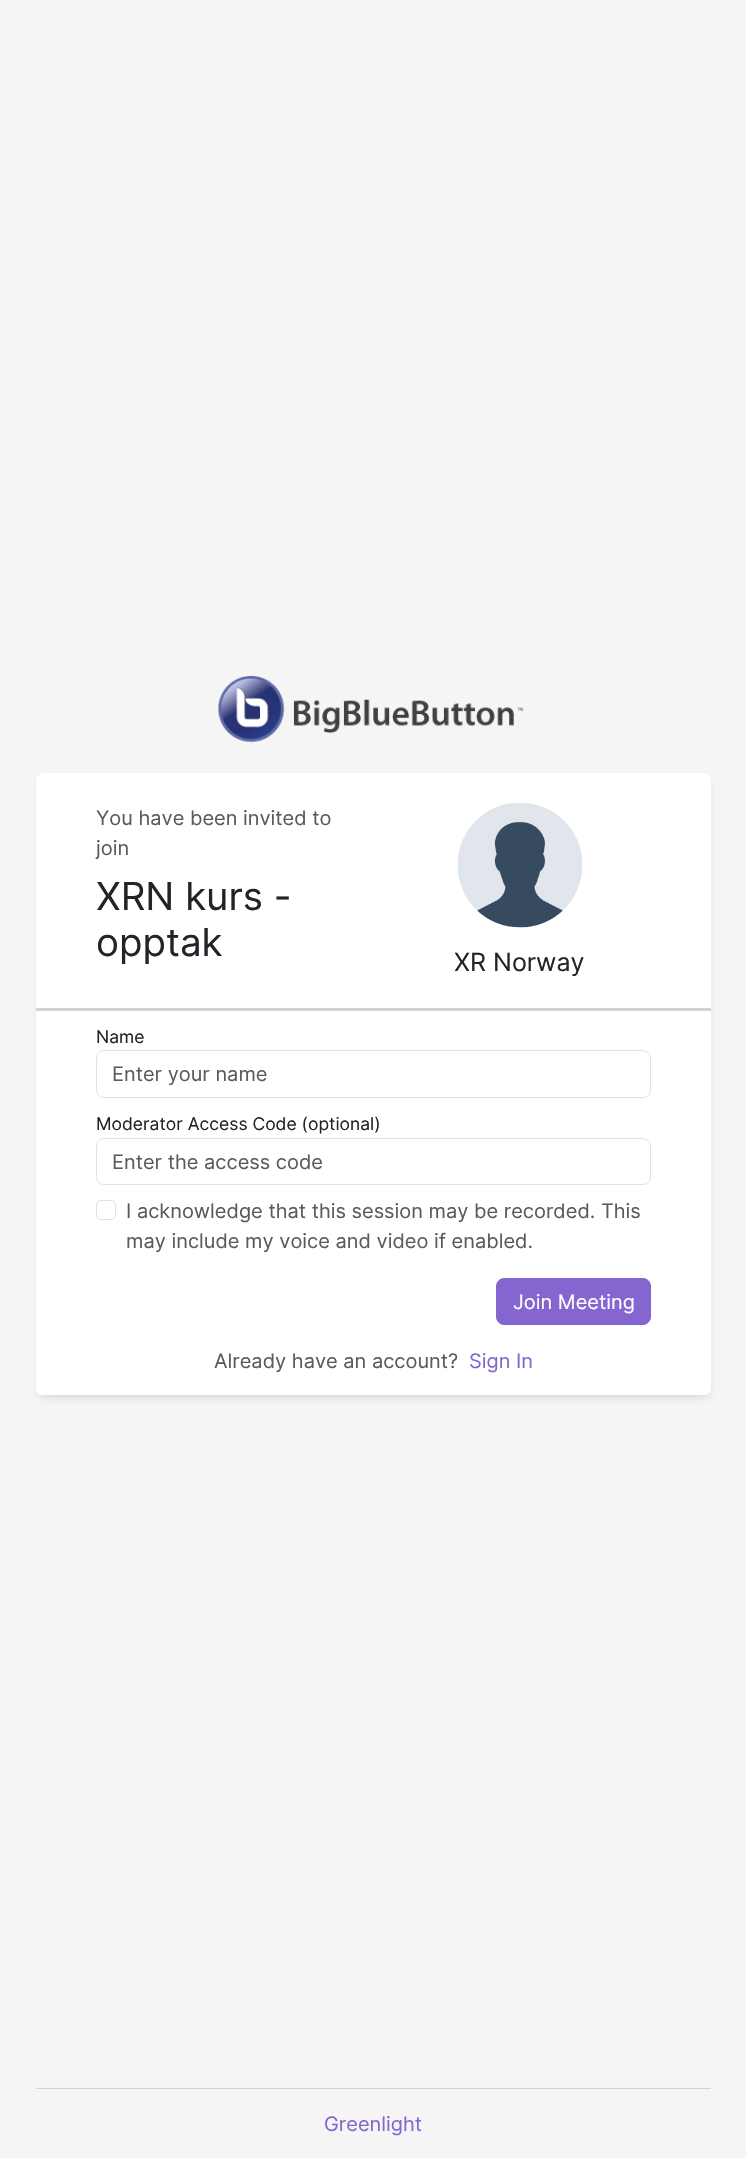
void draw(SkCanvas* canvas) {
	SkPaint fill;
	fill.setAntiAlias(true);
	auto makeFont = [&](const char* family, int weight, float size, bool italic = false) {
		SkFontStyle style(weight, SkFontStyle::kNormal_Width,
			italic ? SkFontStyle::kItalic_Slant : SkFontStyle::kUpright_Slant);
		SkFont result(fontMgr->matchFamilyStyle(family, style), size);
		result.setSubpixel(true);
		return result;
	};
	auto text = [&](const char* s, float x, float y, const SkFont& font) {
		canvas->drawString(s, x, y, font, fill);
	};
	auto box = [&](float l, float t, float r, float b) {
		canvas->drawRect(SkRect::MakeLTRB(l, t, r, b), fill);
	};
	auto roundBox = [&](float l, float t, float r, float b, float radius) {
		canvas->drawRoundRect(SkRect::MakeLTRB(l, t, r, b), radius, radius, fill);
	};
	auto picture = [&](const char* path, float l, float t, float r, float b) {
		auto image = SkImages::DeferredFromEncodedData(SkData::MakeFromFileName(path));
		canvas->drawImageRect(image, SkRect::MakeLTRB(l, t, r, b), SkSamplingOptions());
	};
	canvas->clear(0xFFF5F5F5);
	picture("image0.png", 218, 676, 524, 743);
	fill.setColor(0x0F101828);
	fill.setMaskFilter(SkMaskFilter::MakeBlur(kNormal_SkBlurStyle, 2.5f));
	canvas->drawRoundRect(SkRect::MakeLTRB(39, 778, 709, 1395), 5, 5, fill);
	fill.setMaskFilter(nullptr);
	fill.setColor(0x1A101828);
	fill.setMaskFilter(SkMaskFilter::MakeBlur(kNormal_SkBlurStyle, 5));
	canvas->drawRoundRect(SkRect::MakeLTRB(39, 780, 709, 1398), 5, 5, fill);
	fill.setMaskFilter(nullptr);
	fill.setColor(0xFFFFFFFF);
	roundBox(36, 773, 711, 1395, 8);
	picture("image1.png", 457, 802, 583, 928);
	canvas->drawPath(SkPathBuilder().moveTo(36, 1008).lineTo(711, 1008).lineTo(711, 1389).cubicTo(711, 1392.5f, 708.5f, 1395, 705, 1395).lineTo(42, 1395).cubicTo(38.5f, 1395, 36, 1392.5f, 36, 1389).close().detach(), fill);
	fill.setColor(0xFFD2D2D2);
	box(36, 1008, 711, 1011);
	fill.setStyle(SkPaint::kStroke_Style);
	fill.setStrokeWidth(1);
	fill.setColor(0xFFDEE2E6);
	canvas->drawRoundRect(SkRect::MakeLTRB(96.5f, 1050.5f, 650.5f, 1097.5f), 7.5f, 7.5f, fill);
	canvas->drawRoundRect(SkRect::MakeLTRB(96.5f, 1138.5f, 650.5f, 1184.5f), 7.5f, 7.5f, fill);
	canvas->drawRoundRect(SkRect::MakeLTRB(96.5f, 1200.5f, 115.5f, 1219.5f), 4.5f, 4.5f, fill);
	fill.setStyle(SkPaint::kFill_Style);
	fill.setColor(0xFF8565D0);
	canvas->drawRoundRect(SkRect::MakeLTRB(496.5f, 1278.5f, 650.5f, 1324.5f), 7.5f, 7.5f, fill);
	fill.setStyle(SkPaint::kStroke_Style);
	canvas->drawRoundRect(SkRect::MakeLTRB(496.5f, 1278.5f, 650.5f, 1324.5f), 7.5f, 7.5f, fill);
	fill.setStyle(SkPaint::kFill_Style);
	fill.setColor(0xFFD0D5DD);
	box(36, 2088, 711, 2089);
	auto font1 = makeFont("Inter", 400, 20);
	fill.setColor(0xFF595C5F);
	text("You have been invited to", 96, 825, font1);
	text("join", 96, 855, font1);
	auto font2 = makeFont("Inter", 400, 38.5f);
	fill.setColor(0xFF212529);
	text("XRN kurs -", 96, 910, font2);
	text("opptak", 96, 956, font2);
	auto font3 = makeFont("Inter", 400, 25);
	text("XR Norway", 454, 971, font3);
	auto font4 = makeFont("Inter", 400, 17.5f);
	text("Name", 96, 1043, font4);
	fill.setColor(0xFF595C5F);
	text("Enter your name", 112, 1081, font1);
	fill.setColor(0xFF212529);
	text("Moderator Access Code (optional)", 96, 1130, font4);
	fill.setColor(0xFF595C5F);
	text("Enter the access code", 112, 1169, font1);
	text("I acknowledge that this session may be recorded. This", 126, 1218, font1);
	text("may include my voice and video if enabled.", 126, 1248, font1);
	fill.setColor(0xFFFFFFFF);
	text("Join Meeting", 513, 1309, font1);
	fill.setColor(0xFF595C5F);
	text("Already have an account?", 214, 1368, font1);
	fill.setColor(0xFF8565D0);
	text("Sign In", 469, 1368, font1);
	text("Greenlight", 324, 2131, font1);
}
